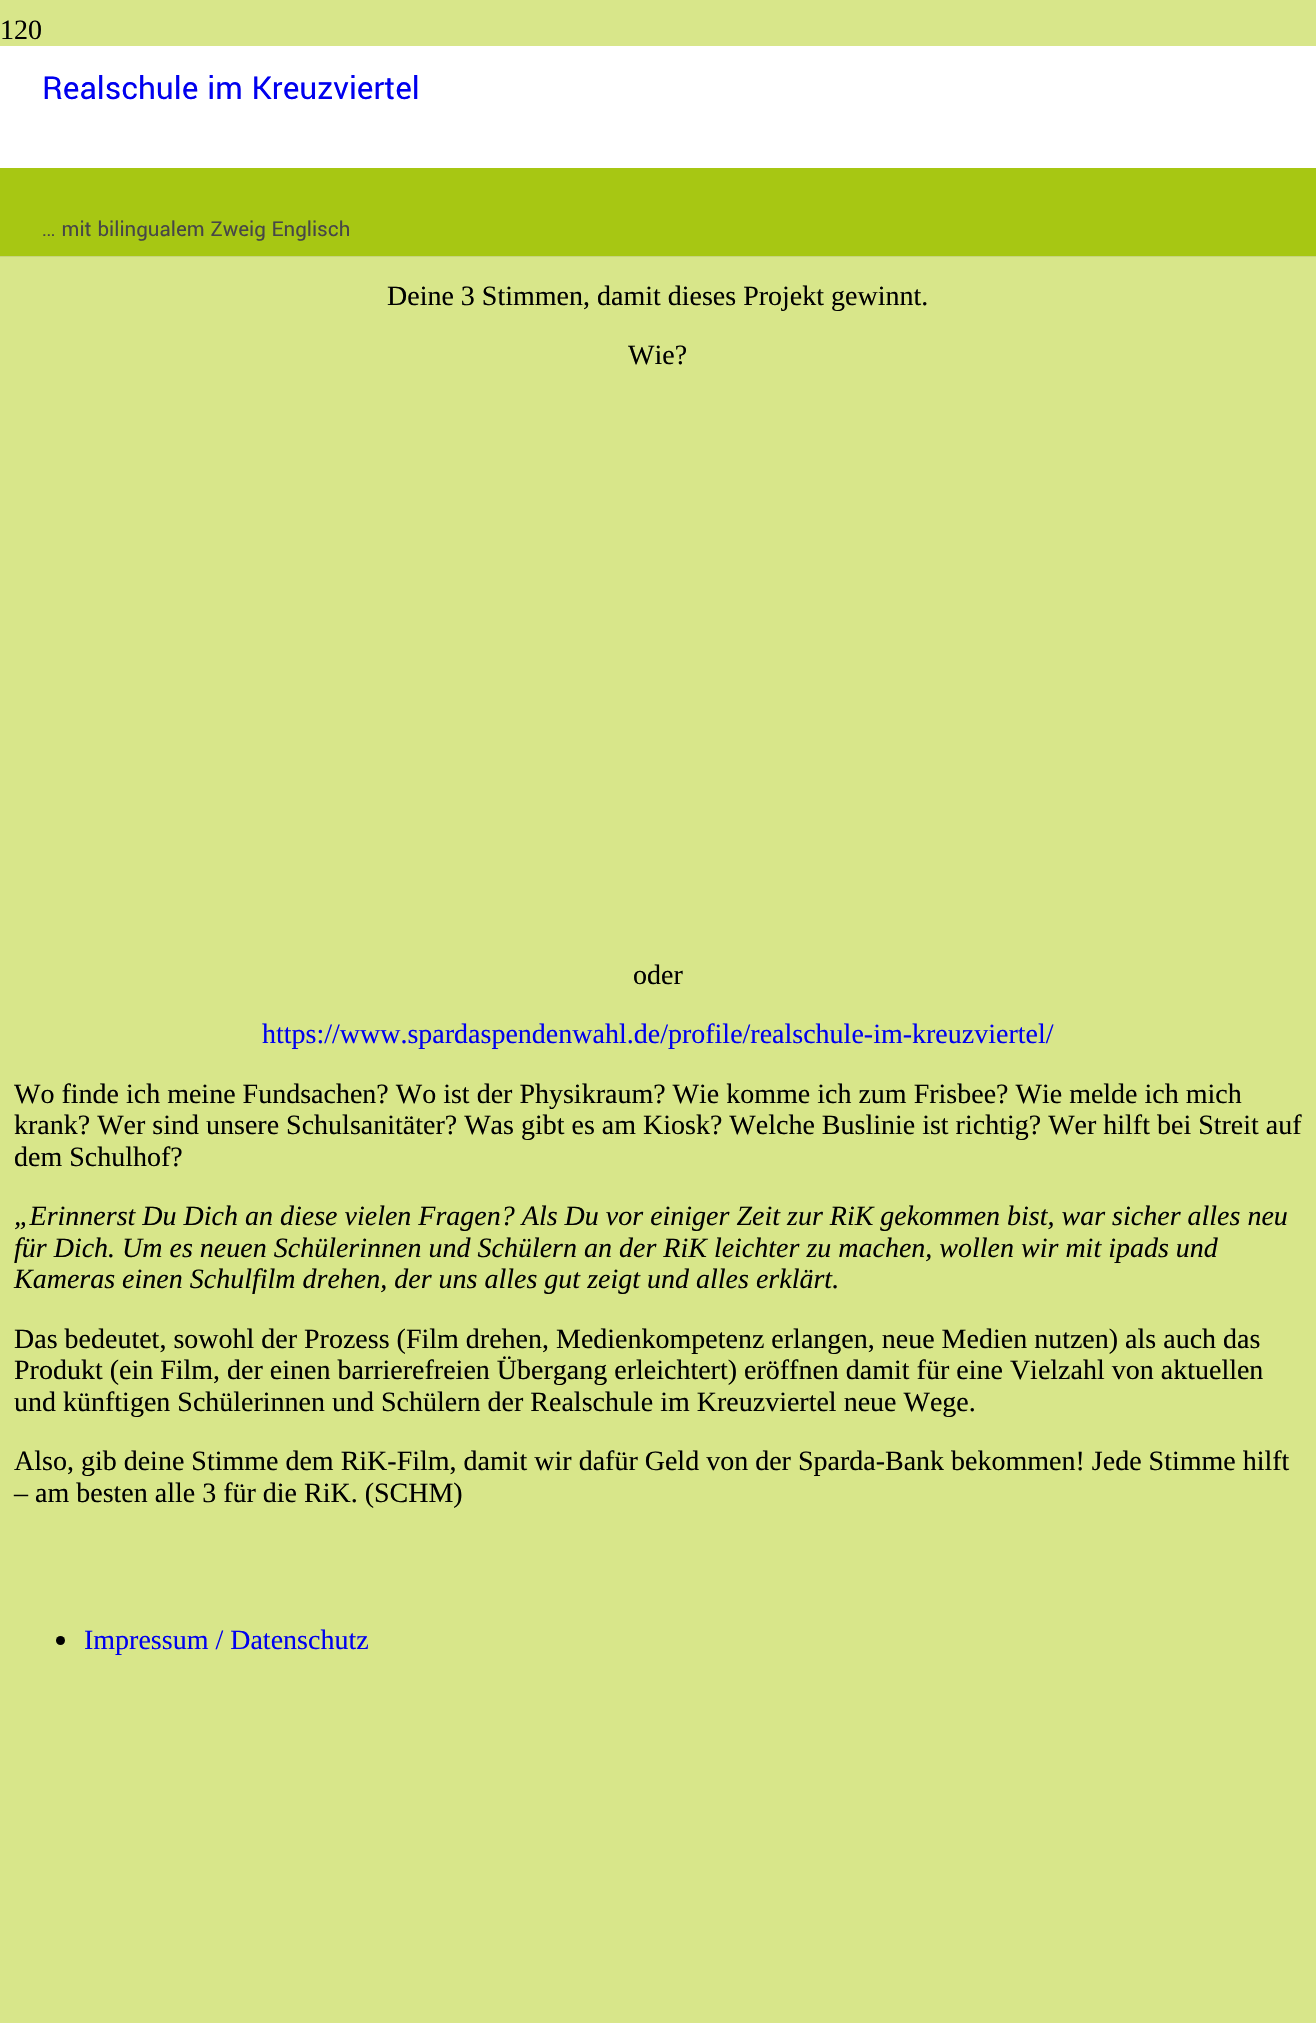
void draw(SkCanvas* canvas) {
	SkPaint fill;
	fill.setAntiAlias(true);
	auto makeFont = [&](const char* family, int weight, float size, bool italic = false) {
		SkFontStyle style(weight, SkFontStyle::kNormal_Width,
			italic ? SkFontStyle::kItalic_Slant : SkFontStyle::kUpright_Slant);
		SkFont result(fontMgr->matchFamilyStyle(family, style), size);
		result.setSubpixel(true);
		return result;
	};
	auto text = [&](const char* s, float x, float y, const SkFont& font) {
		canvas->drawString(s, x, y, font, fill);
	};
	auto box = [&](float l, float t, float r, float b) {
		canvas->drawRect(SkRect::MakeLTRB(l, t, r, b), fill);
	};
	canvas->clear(0xFFD8E68A);
	fill.setColor(0xFFFFFFFF);
	box(0, 46, 1316, 168);
	fill.setColor(0xFFC7D47F);
	box(0, 256, 1316, 257);
	fill.setColor(0xFFA7C713);
	box(0, 168, 1316, 256);
	fill.setColor(0xFF000000);
	canvas->drawCircle(60.5f, 1640.5f, 4.5f, fill);
	auto font1 = makeFont("Liberation Serif", 400, 28);
	text("120", 0, 39, font1);
	auto font2 = makeFont("Yantramanav", 400, 35);
	fill.setColor(0xFF0000EE);
	text("Realschule im Kreuzviertel", 42, 99, font2);
	auto font3 = makeFont("Yantramanav", 400, 22.75f);
	fill.setColor(0xFF474747);
	text("… mit bilingualem Zweig Englisch", 42, 236, font3);
	fill.setColor(0xFF000000);
	text("Deine 3 Stimmen, damit dieses Projekt gewinnt.", 387, 305, font1);
	text("Wie?", 628, 364, font1);
	text("oder", 633, 984, font1);
	fill.setColor(0xFF0000EE);
	text("https://www.spardaspendenwahl.de/profile/realschule-im-kreuzviertel/", 262, 1043, font1);
	fill.setColor(0xFF000000);
	text("Wo finde ich meine Fundsachen? Wo ist der Physikraum? Wie komme ich zum Frisbee? Wie melde ich mich", 14, 1103, font1);
	text("krank? Wer sind unsere Schulsanitäter? Was gibt es am Kiosk? Welche Buslinie ist richtig? Wer hilft bei Streit auf", 14, 1134, font1);
	text("dem Schulhof?", 14, 1166, font1);
	auto font4 = makeFont("Liberation Serif", 400, 28, true);
	text("„Erinnerst Du Dich an diese vielen Fragen? Als Du vor einiger Zeit zur RiK gekommen bist, war sicher alles neu", 14, 1225, font4);
	text("für Dich. Um es neuen Schülerinnen und Schülern an der RiK leichter zu machen, wollen wir mit ipads und", 14, 1257, font4);
	text("Kameras einen Schulfilm drehen, der uns alles gut zeigt und alles erklärt.", 14, 1288, font4);
	text("Das bedeutet, sowohl der Prozess (Film drehen, Medienkompetenz erlangen, neue Medien nutzen) als auch das", 14, 1348, font1);
	text("Produkt (ein Film, der einen barrierefreien Übergang erleichtert) eröffnen damit für eine Vielzahl von aktuellen", 14, 1379, font1);
	text("und künftigen Schülerinnen und Schülern der Realschule im Kreuzviertel neue Wege.", 14, 1411, font1);
	text("Also, gib deine Stimme dem RiK-Film, damit wir dafür Geld von der Sparda-Bank bekommen! Jede Stimme hilft", 14, 1470, font1);
	text("– am besten alle 3 für die RiK. (SCHM)", 14, 1502, font1);
	fill.setColor(0xFF0000EE);
	text("Impressum / Datenschutz", 84, 1649, font1);
}
